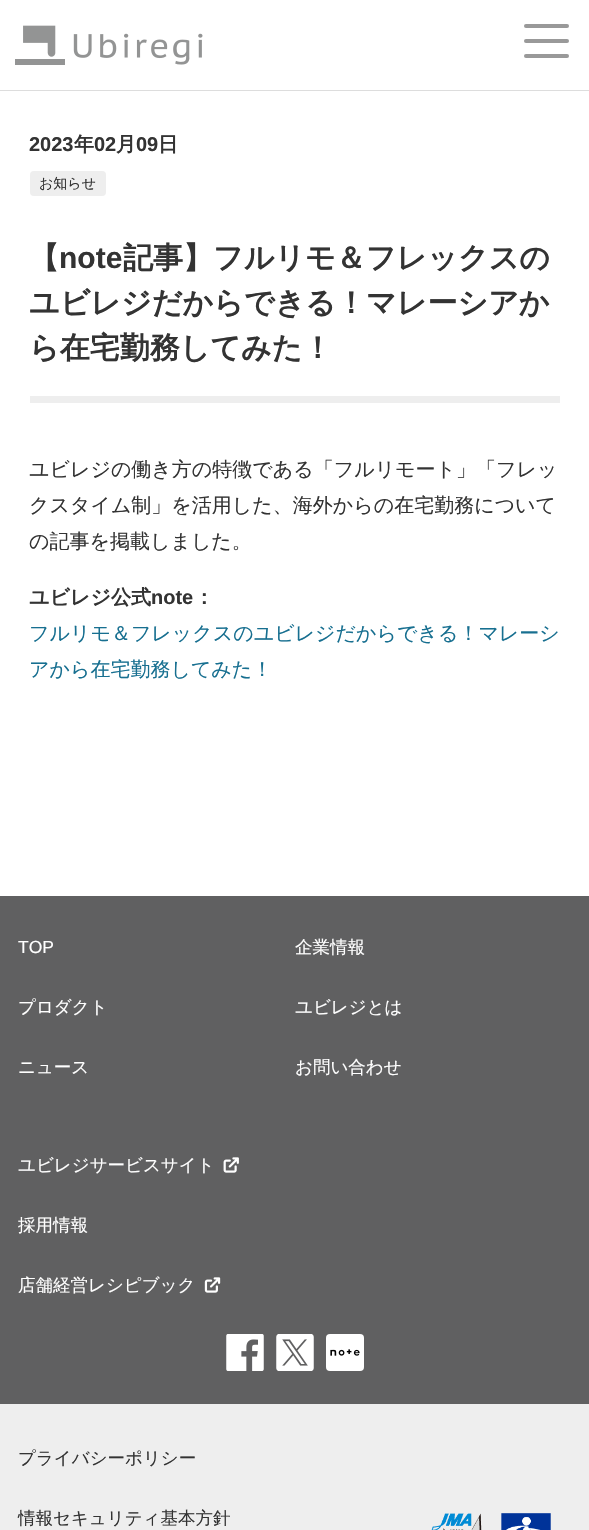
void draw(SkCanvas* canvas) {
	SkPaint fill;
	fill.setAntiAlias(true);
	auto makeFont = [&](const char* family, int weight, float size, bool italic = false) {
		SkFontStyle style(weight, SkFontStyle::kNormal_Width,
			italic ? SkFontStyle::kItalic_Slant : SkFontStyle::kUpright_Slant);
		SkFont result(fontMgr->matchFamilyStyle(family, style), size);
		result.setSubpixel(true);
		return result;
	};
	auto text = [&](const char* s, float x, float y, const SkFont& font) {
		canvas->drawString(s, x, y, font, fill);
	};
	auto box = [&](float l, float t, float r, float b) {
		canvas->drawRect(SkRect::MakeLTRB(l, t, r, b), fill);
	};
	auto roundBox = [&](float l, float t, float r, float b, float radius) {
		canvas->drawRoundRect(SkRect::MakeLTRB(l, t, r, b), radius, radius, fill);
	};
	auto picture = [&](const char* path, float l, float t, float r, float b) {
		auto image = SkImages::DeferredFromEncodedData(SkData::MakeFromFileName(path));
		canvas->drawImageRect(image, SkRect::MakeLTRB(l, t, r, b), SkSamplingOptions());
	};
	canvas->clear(0xFFFFFFFF);
	fill.setColor(0xFFDDDDDD);
	box(0, 90, 589, 91);
	picture("image0.png", 15, 25, 203, 65);
	fill.setColor(0xFF999999);
	roundBox(524, 39, 569, 43, 2);
	roundBox(524, 24, 569, 28, 2);
	roundBox(524, 54, 569, 58, 2);
	fill.setColor(0xFFEEEEEE);
	roundBox(30, 171, 106, 196, 4);
	box(30, 396, 560, 403);
	fill.setColor(0xFF606061);
	box(0, 896, 589, 1404);
	picture("image1.png", 223, 1157, 239, 1173);
	picture("image2.png", 204, 1277, 221, 1293);
	picture("image3.png", 226, 1334, 264, 1371);
	picture("image4.png", 276, 1334, 314, 1371);
	fill.setColor(0xFFFFFFFF);
	roundBox(326, 1334, 364, 1371, 4);
	picture("image5.png", 330, 1349, 360, 1356);
	fill.setColor(0xFFEEEEEE);
	box(0, 1404, 589, 1530);
	picture("image6.png", 431, 1513, 551, 1530);
	auto font1 = makeFont("Liberation Sans", 700, 20);
	fill.setColor(0xFF333333);
	text("2023", 29, 151, font1);
	auto font2 = makeFont("WenQuanYi Zen Hei", 700, 20);
	text("年", 74, 151, font2);
	text("02", 94, 151, font1);
	text("月", 116, 151, font2);
	text("09", 136, 151, font1);
	text("日", 158, 151, font2);
	auto font3 = makeFont("WenQuanYi Zen Hei", 500, 14);
	text("お知らせ", 39, 188, font3);
	auto font4 = makeFont("WenQuanYi Zen Hei", 700, 30);
	text("【", 29, 268, font4);
	auto font5 = makeFont("Liberation Sans", 700, 30);
	text("note", 59, 268, font5);
	text("記事】フルリモ＆フレックスの", 123, 268, font4);
	text("ユビレジだからできる！マレーシアか", 29, 313, font4);
	text("ら在宅勤務してみた！", 29, 358, font4);
	auto font6 = makeFont("WenQuanYi Zen Hei", 500, 20);
	text("ユビレジの働き方の特徴である「フルリモート」「フレッ", 29, 476, font6);
	text("クスタイム制」を活用した、海外からの在宅勤務について", 29, 512, font6);
	text("の記事を掲載しました。", 29, 548, font6);
	text("ユビレジ公式", 29, 604, font2);
	text("note", 151, 604, font1);
	text("：", 194, 604, font2);
	fill.setColor(0xFF176F90);
	text("フルリモ＆フレックスのユビレジだからできる！マレーシ", 29, 640, font6);
	text("アから在宅勤務してみた！", 29, 676, font6);
	auto font7 = makeFont("Liberation Sans", 400, 17.5f);
	fill.setColor(0xFFFFFFFF);
	text("TOP", 18, 953, font7);
	auto font8 = makeFont("WenQuanYi Zen Hei", 500, 17.5f);
	text("企業情報", 295, 953, font8);
	text("プロダクト", 18, 1013, font8);
	text("ユビレジとは", 295, 1013, font8);
	text("ニュース", 18, 1073, font8);
	text("お問い合わせ", 295, 1073, font8);
	text("ユビレジサービスサイト", 18, 1171, font8);
	text("採用情報", 18, 1231, font8);
	text("店舗経営レシピブック", 18, 1291, font8);
	fill.setColor(0xFF333333);
	text("プライバシーポリシー", 18, 1464, font8);
	text("情報セキュリティ基本方針", 18, 1524, font8);
}
